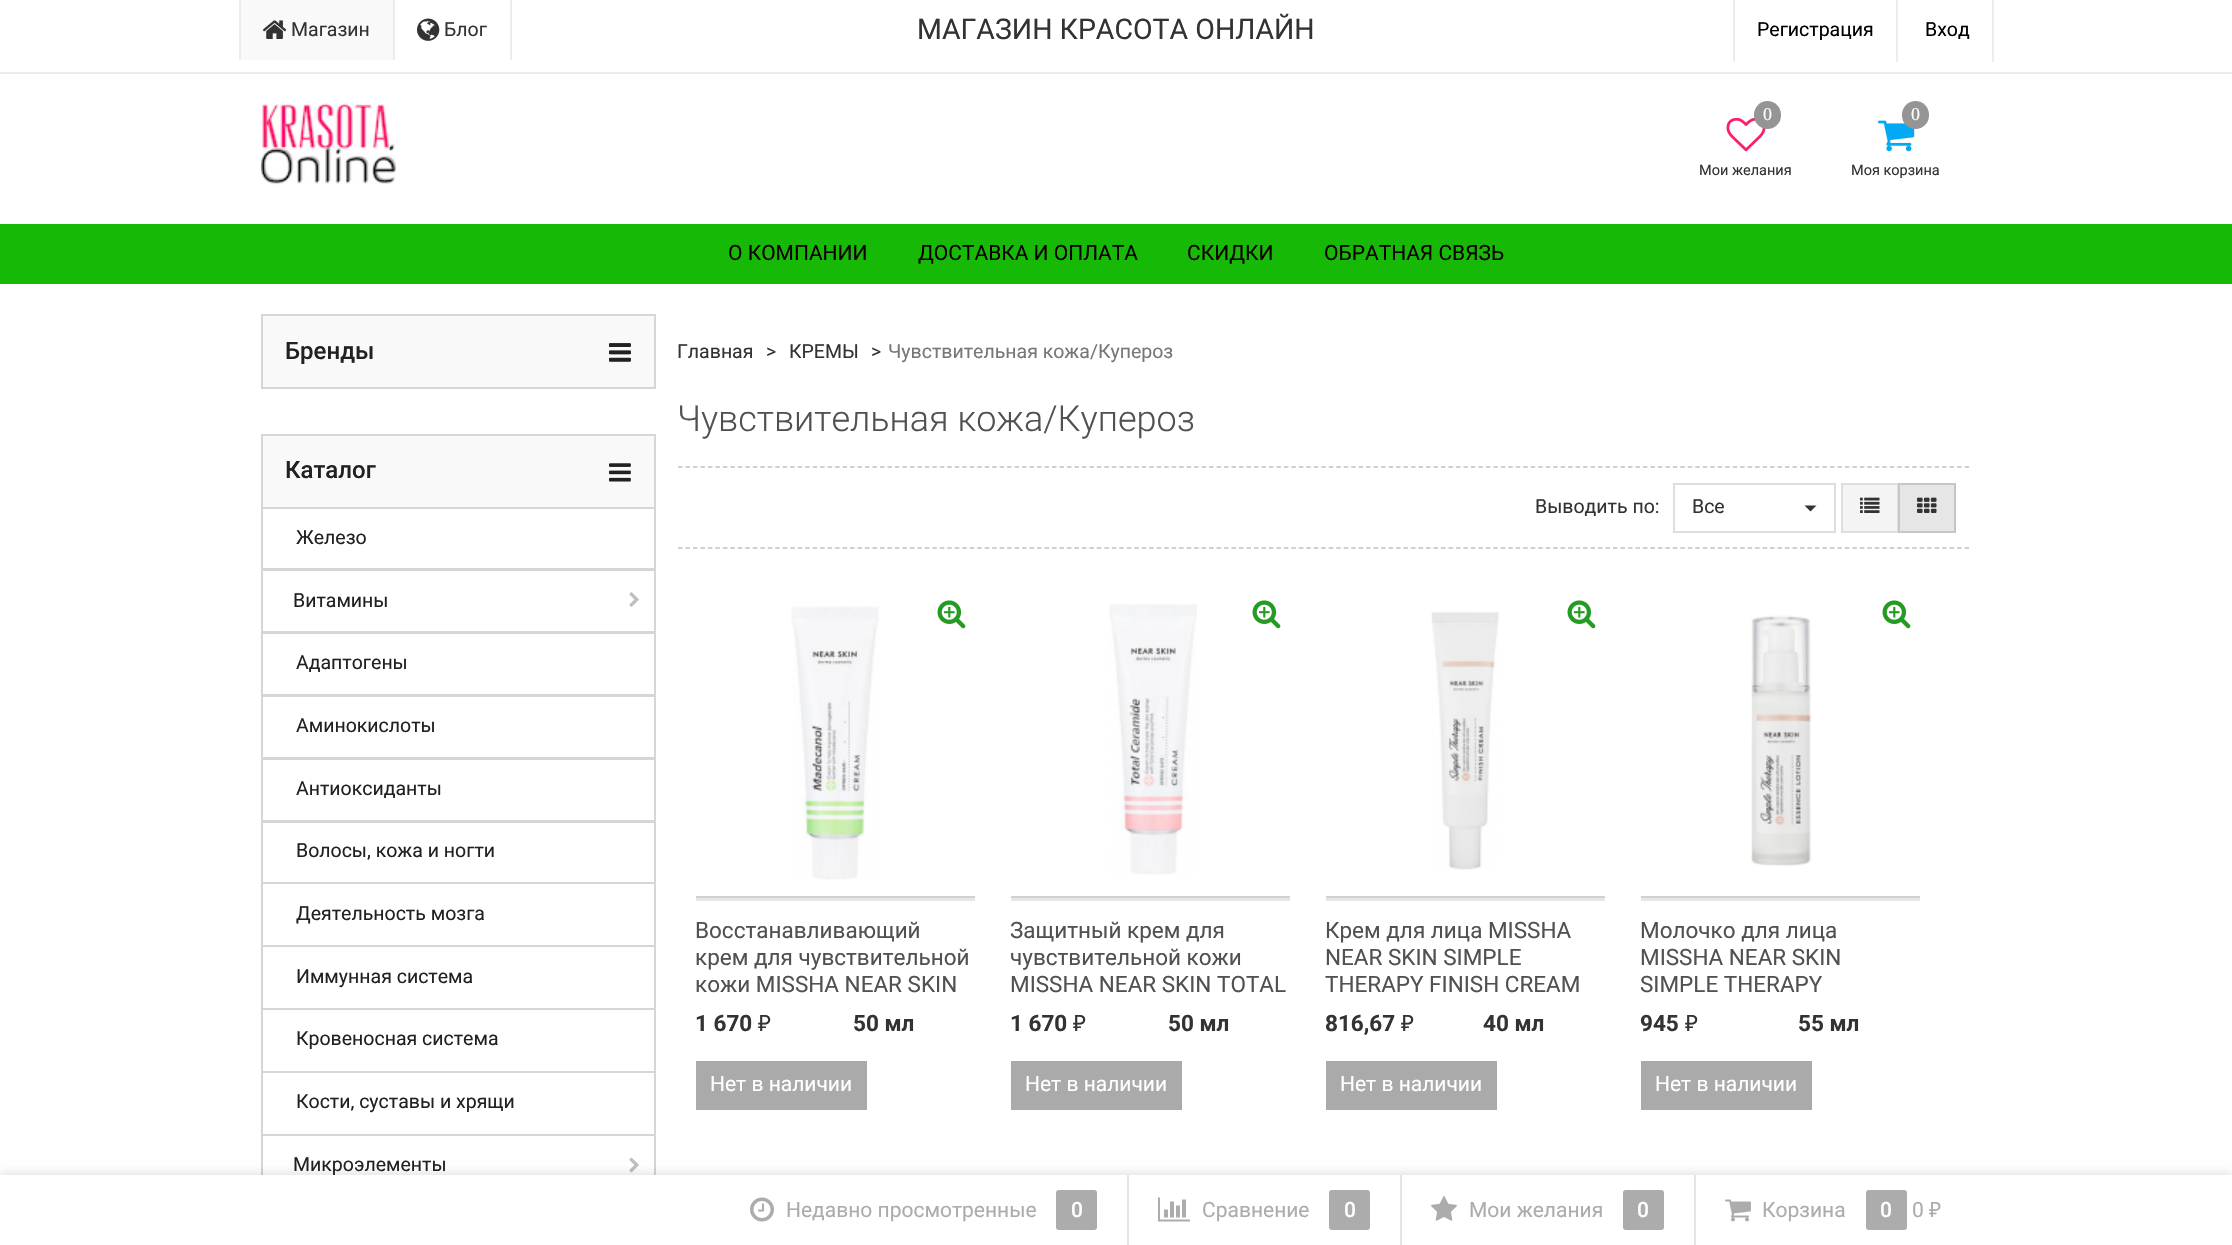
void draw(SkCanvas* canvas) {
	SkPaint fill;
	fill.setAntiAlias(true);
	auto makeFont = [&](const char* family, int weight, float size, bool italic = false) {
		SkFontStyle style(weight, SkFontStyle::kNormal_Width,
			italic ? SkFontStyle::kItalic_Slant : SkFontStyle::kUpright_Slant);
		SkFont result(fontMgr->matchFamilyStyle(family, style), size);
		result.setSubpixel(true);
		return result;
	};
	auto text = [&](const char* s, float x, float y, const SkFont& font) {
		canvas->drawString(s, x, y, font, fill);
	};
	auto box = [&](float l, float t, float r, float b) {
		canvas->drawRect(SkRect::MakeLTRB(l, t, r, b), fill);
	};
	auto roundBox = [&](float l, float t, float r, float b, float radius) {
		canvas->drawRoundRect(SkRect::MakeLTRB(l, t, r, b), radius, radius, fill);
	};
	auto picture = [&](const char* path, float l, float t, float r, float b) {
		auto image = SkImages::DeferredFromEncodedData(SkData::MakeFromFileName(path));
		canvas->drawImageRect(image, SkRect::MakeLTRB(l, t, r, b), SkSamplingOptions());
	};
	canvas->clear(0xFFFFFFFF);
	fill.setColor(0xFFEBEBEB);
	box(0, 72, 2232, 74);
	fill.setColor(0xFFF9F9F9);
	box(241, 0, 393, 60);
	fill.setColor(0xFFECECEC);
	box(393, 0, 395, 60);
	box(239, 0, 241, 60);
	picture("image0.png", 262, 20, 287, 39);
	box(510, 0, 512, 60);
	picture("image1.png", 417, 18, 440, 41);
	box(1896, 0, 1898, 62);
	box(1733, 0, 1735, 62);
	box(1992, 0, 1994, 62);
	picture("image2.png", 261, 103, 396, 185);
	picture("image3.png", 1726, 117, 1766, 152);
	fill.setColor(0xFF959595);
	roundBox(1754, 101, 1781, 129, 13.5f);
	picture("image4.png", 1878, 120, 1915, 152);
	roundBox(1902, 101, 1929, 129, 13.5f);
	fill.setColor(0xFF16BA06);
	box(0, 224, 2232, 284);
	fill.setColor(0xFFF9F9F9);
	canvas->drawRect(SkRect::MakeLTRB(262, 315, 655, 388), fill);
	fill.setStyle(SkPaint::kStroke_Style);
	fill.setStrokeWidth(2);
	fill.setColor(0xFFD6D6D6);
	canvas->drawRect(SkRect::MakeLTRB(262, 315, 655, 388), fill);
	picture("image5.png", 609, 343, 631, 362);
	picture("image6.png", 609, 343, 631, 362);
	fill.setStyle(SkPaint::kFill_Style);
	fill.setColor(0xFFF9F9F9);
	canvas->drawRect(SkRect::MakeLTRB(262, 435, 655, 508), fill);
	fill.setStyle(SkPaint::kStroke_Style);
	fill.setColor(0xFFD6D6D6);
	canvas->drawRect(SkRect::MakeLTRB(262, 435, 655, 508), fill);
	picture("image5.png", 609, 463, 631, 482);
	canvas->drawRect(SkRect::MakeLTRB(262, 508, 655, 569), fill);
	canvas->drawRect(SkRect::MakeLTRB(262, 570, 655, 632), fill);
	picture("image7.png", 629, 592, 639, 607);
	canvas->drawRect(SkRect::MakeLTRB(262, 633, 655, 695), fill);
	canvas->drawRect(SkRect::MakeLTRB(262, 696, 655, 758), fill);
	canvas->drawRect(SkRect::MakeLTRB(262, 759, 655, 821), fill);
	canvas->drawRect(SkRect::MakeLTRB(262, 822, 655, 883), fill);
	canvas->drawRect(SkRect::MakeLTRB(262, 883, 655, 946), fill);
	canvas->drawRect(SkRect::MakeLTRB(262, 946, 655, 1009), fill);
	canvas->drawRect(SkRect::MakeLTRB(262, 1009, 655, 1072), fill);
	canvas->drawRect(SkRect::MakeLTRB(262, 1072, 655, 1135), fill);
	canvas->drawRect(SkRect::MakeLTRB(262, 1135, 655, 1196), fill);
	picture("image8.png", 629, 1157, 639, 1173);
	fill.setStrokeWidth(1.5f);
	fill.setColor(0xFFC1C1C1);
	fill.setPathEffect(SkDashPathEffect::Make({{4.5f, 2.98f}}, 0));
	canvas->drawPath(SkPathBuilder().moveTo(678, 467).lineTo(1971, 467).detach(), fill);
	fill.setPathEffect(nullptr);
	fill.setPathEffect(SkDashPathEffect::Make({{4.5f, 2.98f}}, 0));
	canvas->drawPath(SkPathBuilder().moveTo(678, 548).lineTo(1971, 548).detach(), fill);
	fill.setPathEffect(nullptr);
	fill.setStrokeWidth(2);
	fill.setColor(0xFFDEDEDE);
	canvas->drawRect(SkRect::MakeLTRB(1674, 484, 1835, 532), fill);
	fill.setStyle(SkPaint::kFill_Style);
	fill.setColor(0xFF333333);
	canvas->drawPath(SkPathBuilder().moveTo(1804.5f, 505.5f).lineTo(1816.5f, 505.5f).lineTo(1810.5f, 511.5f).close().detach(), fill);
	fill.setColor(0xFFF4F4F4);
	canvas->drawRect(SkRect::MakeLTRB(1842, 484, 1898, 532), fill);
	fill.setStyle(SkPaint::kStroke_Style);
	fill.setColor(0xFFDEDEDE);
	canvas->drawRect(SkRect::MakeLTRB(1842, 484, 1898, 532), fill);
	picture("image9.png", 1860, 497, 1880, 513);
	fill.setStyle(SkPaint::kFill_Style);
	fill.setColor(0xFFE6E6E6);
	canvas->drawRect(SkRect::MakeLTRB(1899, 484, 1955, 532), fill);
	fill.setStyle(SkPaint::kStroke_Style);
	fill.setColor(0xFFC6C6C6);
	canvas->drawRect(SkRect::MakeLTRB(1899, 484, 1955, 532), fill);
	picture("image10.png", 1917, 497, 1937, 513);
	picture("image11.png", 791, 606, 881, 880);
	picture("image12.png", 937, 600, 966, 629);
	fill.setStyle(SkPaint::kFill_Style);
	fill.setColor(0xFFE7E7E7);
	box(696, 898, 975, 901);
	fill.setColor(0xFFD1D1D1);
	box(696, 896, 975, 898);
	fill.setColor(0xFFAAAAAA);
	box(696, 1061, 867, 1110);
	picture("image13.png", 1109, 604, 1197, 875);
	picture("image12.png", 1252, 600, 1281, 629);
	fill.setColor(0xFFE7E7E7);
	box(1011, 898, 1290, 901);
	fill.setColor(0xFFD1D1D1);
	box(1011, 896, 1290, 898);
	fill.setColor(0xFFAAAAAA);
	box(1011, 1061, 1182, 1110);
	picture("image14.png", 1431, 611, 1499, 870);
	picture("image12.png", 1567, 600, 1596, 629);
	fill.setColor(0xFFE7E7E7);
	box(1326, 898, 1605, 901);
	fill.setColor(0xFFD1D1D1);
	box(1326, 896, 1605, 898);
	fill.setColor(0xFFAAAAAA);
	box(1326, 1061, 1497, 1110);
	picture("image15.png", 1751, 615, 1811, 867);
	picture("image12.png", 1882, 600, 1911, 629);
	fill.setColor(0xFFE7E7E7);
	box(1641, 898, 1920, 901);
	fill.setColor(0xFFD1D1D1);
	box(1641, 896, 1920, 898);
	fill.setColor(0xFFAAAAAA);
	box(1641, 1061, 1812, 1110);
	fill.setColor(0x1A000000);
	fill.setMaskFilter(SkMaskFilter::MakeBlur(kNormal_SkBlurStyle, 4));
	canvas->drawRect(SkRect::MakeLTRB(0, 1172, 2232, 1242), fill);
	fill.setMaskFilter(nullptr);
	fill.setColor(0xFFFFFFFF);
	box(0, 1175, 2232, 1245);
	fill.setColor(0xFFE4E4E4);
	box(1127, 1175, 1129, 1245);
	picture("image16.png", 750, 1197, 774, 1222);
	fill.setColor(0xFFACACAC);
	roundBox(1056, 1190, 1097, 1230, 3);
	fill.setColor(0xFFE4E4E4);
	box(1400, 1175, 1402, 1245);
	picture("image17.png", 1158, 1197, 1190, 1222);
	fill.setColor(0xFFACACAC);
	roundBox(1329, 1190, 1370, 1230, 3);
	fill.setColor(0xFFE4E4E4);
	box(1694, 1175, 1696, 1245);
	picture("image18.png", 1431, 1196, 1457, 1221);
	fill.setColor(0xFFACACAC);
	roundBox(1623, 1190, 1664, 1230, 3);
	picture("image19.png", 1725, 1199, 1751, 1222);
	roundBox(1866, 1190, 1907, 1230, 3);
	auto font1 = makeFont("Roboto", 400, 19.5f);
	fill.setColor(0xFF333333);
	text("Магазин", 291, 36, font1);
	text("Блог", 444, 36, font1);
	auto font2 = makeFont("Roboto", 400, 28.5f);
	text("МАГАЗИН КРАСОТА ОНЛАЙН", 917, 39, font2);
	fill.setColor(0xFF000000);
	text("Регистрация", 1757, 36, font1);
	text("Вход", 1925, 36, font1);
	auto font3 = makeFont("Liberation Serif", 400, 18);
	fill.setColor(0xFFFFFFFF);
	text("0", 1763, 120, font3);
	auto font4 = makeFont("Roboto", 400, 14.5f);
	fill.setColor(0xFF333333);
	text("Мои желания", 1699, 175, font4);
	fill.setColor(0xFFFFFFFF);
	text("0", 1911, 120, font3);
	fill.setColor(0xFF333333);
	text("Моя корзина", 1851, 175, font4);
	auto font5 = makeFont("Roboto", 400, 21);
	fill.setColor(0xFF0C0000);
	text("О КОМПАНИИ", 728, 260, font5);
	text("ДОСТАВКА И ОПЛАТА", 918, 260, font5);
	text("СКИДКИ", 1187, 260, font5);
	text("ОБРАТНАЯ СВЯЗЬ", 1324, 260, font5);
	auto font6 = makeFont("Roboto", 500, 24);
	fill.setColor(0xFF212121);
	text("Бренды", 285, 359, font6);
	text("Каталог", 285, 478, font6);
	text("Железо", 296, 544, font1);
	text("Витамины", 293, 607, font1);
	text("Адаптогены", 296, 669, font1);
	text("Аминокислоты", 296, 732, font1);
	text("Антиоксиданты", 296, 795, font1);
	text("Волосы, кожа и ногти", 296, 857, font1);
	text("Деятельность мозга", 296, 920, font1);
	text("Иммунная система", 296, 983, font1);
	text("Кровеносная система", 296, 1045, font1);
	text("Кости, суставы и хрящи", 296, 1108, font1);
	text("Микроэлементы", 293, 1171, font1);
	fill.setColor(0xFF333333);
	text("Главная", 677, 358, font1);
	text(">", 766, 358, font1);
	text("КРЕМЫ", 789, 358, font1);
	text(">", 871, 358, font1);
	fill.setColor(0xFF777777);
	text("Чувствительная кожа/Купероз", 888, 358, font1);
	auto font7 = makeFont("Roboto", 300, 36);
	fill.setColor(0xFF515151);
	text("Чувствительная кожа/Купероз", 677, 431, font7);
	fill.setColor(0xFF333333);
	text("Выводить по:", 1535, 513, font1);
	text("Все", 1692, 513, font1);
	auto font8 = makeFont("Roboto", 400, 22.5f);
	fill.setColor(0xFF515151);
	text("Восстанавливающий", 695, 938, font8);
	text("крем для чувствительной", 695, 965, font8);
	text("кожи MISSHA NEAR SKIN", 695, 992, font8);
	auto font9 = makeFont("Roboto", 700, 22.5f);
	fill.setColor(0xFF333333);
	text("1 670", 695, 1031, font9);
	auto font10 = makeFont("Noto Sans", 400, 22.5f);
	text("₽", 758, 1031, font10);
	text("50 мл", 853, 1031, font9);
	fill.setColor(0xFFFFFFFF);
	text("Нет в наличии", 710, 1091, font5);
	fill.setColor(0xFF515151);
	text("Защитный крем для", 1010, 938, font8);
	text("чувствительной кожи", 1010, 965, font8);
	text("MISSHA NEAR SKIN TOTAL", 1010, 992, font8);
	fill.setColor(0xFF333333);
	text("1 670", 1010, 1031, font9);
	text("₽", 1073, 1031, font10);
	text("50 мл", 1168, 1031, font9);
	fill.setColor(0xFFFFFFFF);
	text("Нет в наличии", 1025, 1091, font5);
	fill.setColor(0xFF515151);
	text("Крем для лица MISSHA", 1325, 938, font8);
	text("NEAR SKIN SIMPLE", 1325, 965, font8);
	text("THERAPY FINISH CREAM", 1325, 992, font8);
	fill.setColor(0xFF333333);
	text("816,67", 1325, 1031, font9);
	text("₽", 1401, 1031, font10);
	text("40 мл", 1483, 1031, font9);
	fill.setColor(0xFFFFFFFF);
	text("Нет в наличии", 1340, 1091, font5);
	fill.setColor(0xFF515151);
	text("Молочко для лица", 1640, 938, font8);
	text("MISSHA NEAR SKIN", 1640, 965, font8);
	text("SIMPLE THERAPY", 1640, 992, font8);
	fill.setColor(0xFF333333);
	text("945", 1640, 1031, font9);
	text("₽", 1685, 1031, font10);
	text("55 мл", 1798, 1031, font9);
	fill.setColor(0xFFFFFFFF);
	text("Нет в наличии", 1655, 1091, font5);
	fill.setColor(0xFFACACAC);
	text("Недавно просмотренные", 786, 1217, font5);
	auto font11 = makeFont("Roboto", 500, 21);
	fill.setColor(0xFFFFFFFF);
	text("0", 1071, 1217, font11);
	fill.setColor(0xFFACACAC);
	text("Сравнение", 1202, 1217, font5);
	fill.setColor(0xFFFFFFFF);
	text("0", 1344, 1217, font11);
	fill.setColor(0xFFACACAC);
	text("Мои желания", 1469, 1217, font5);
	fill.setColor(0xFFFFFFFF);
	text("0", 1637, 1217, font11);
	fill.setColor(0xFFACACAC);
	text("Корзина", 1762, 1217, font5);
	fill.setColor(0xFFFFFFFF);
	text("0", 1880, 1217, font11);
	fill.setColor(0xFFACACAC);
	text("0", 1912, 1217, font5);
	auto font12 = makeFont("Noto Sans", 400, 21);
	text("₽", 1929, 1217, font12);
}
